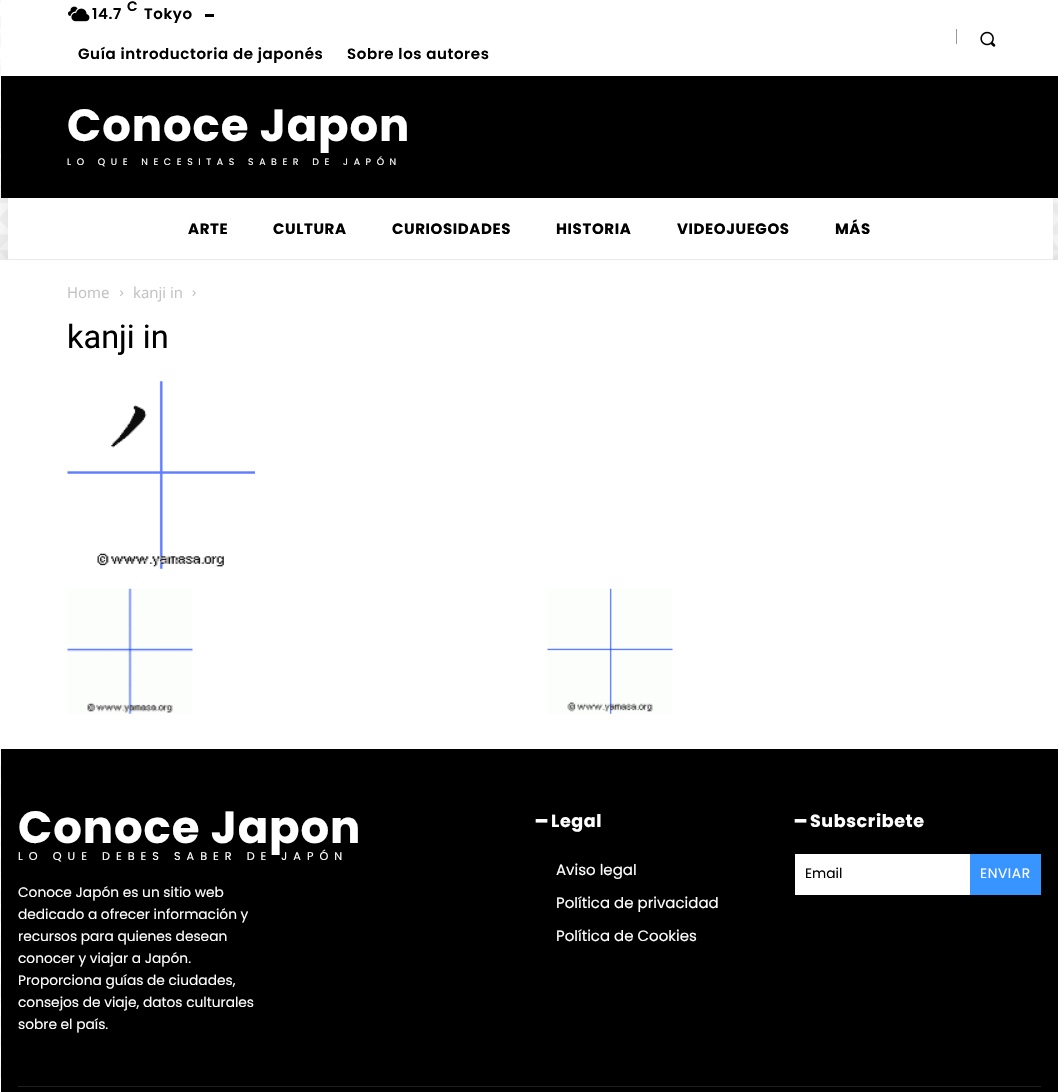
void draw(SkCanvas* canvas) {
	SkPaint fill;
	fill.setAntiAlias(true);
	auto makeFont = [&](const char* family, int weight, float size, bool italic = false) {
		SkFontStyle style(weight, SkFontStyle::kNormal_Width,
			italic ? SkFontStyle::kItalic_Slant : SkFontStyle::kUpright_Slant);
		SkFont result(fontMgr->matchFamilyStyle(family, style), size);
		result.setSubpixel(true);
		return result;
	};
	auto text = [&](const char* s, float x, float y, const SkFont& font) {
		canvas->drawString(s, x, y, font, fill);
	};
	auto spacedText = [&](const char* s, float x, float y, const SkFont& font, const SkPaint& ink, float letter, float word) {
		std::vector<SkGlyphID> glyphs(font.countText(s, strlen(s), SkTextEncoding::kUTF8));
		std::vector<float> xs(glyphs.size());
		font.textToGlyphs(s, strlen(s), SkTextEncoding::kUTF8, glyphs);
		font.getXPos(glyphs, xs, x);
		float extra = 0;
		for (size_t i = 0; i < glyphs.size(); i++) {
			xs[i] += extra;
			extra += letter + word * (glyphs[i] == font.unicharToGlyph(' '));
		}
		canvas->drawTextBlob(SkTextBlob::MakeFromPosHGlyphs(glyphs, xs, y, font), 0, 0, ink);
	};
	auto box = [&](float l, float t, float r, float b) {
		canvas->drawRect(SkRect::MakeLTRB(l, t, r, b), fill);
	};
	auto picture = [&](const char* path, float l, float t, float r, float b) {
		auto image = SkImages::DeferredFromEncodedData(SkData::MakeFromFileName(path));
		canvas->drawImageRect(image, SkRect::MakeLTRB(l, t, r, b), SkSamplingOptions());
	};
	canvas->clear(0xFFFFFFFF);
	picture("image0.png", 0, 0, 1058, 1092);
	fill.setColor(0xFFFFFFFF);
	box(1, 0, 1058, 76);
	picture("image1.png", 68, 6, 90, 22);
	fill.setColor(0xFF000000);
	box(205, 14, 214, 17);
	fill.setColor(0xFF999999);
	box(956, 29, 957, 44);
	picture("image2.png", 980, 31, 996, 47);
	fill.setColor(0xFF000000);
	box(1, 76, 1058, 198);
	fill.setColor(0x1F000000);
	fill.setMaskFilter(SkMaskFilter::MakeBlur(kNormal_SkBlurStyle, 12.5f));
	canvas->drawRect(SkRect::MakeLTRB(-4, 244, 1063, 739), fill);
	fill.setMaskFilter(nullptr);
	fill.setColor(0xFFFFFFFF);
	box(0, 260, 1058, 748);
	fill.setColor(0x1F000000);
	fill.setMaskFilter(SkMaskFilter::MakeBlur(kNormal_SkBlurStyle, 12.5f));
	canvas->drawRect(SkRect::MakeLTRB(8, 173, 1053, 235), fill);
	fill.setMaskFilter(nullptr);
	fill.setColor(0xFFFFFFFF);
	box(8, 198, 1053, 259);
	fill.setColor(0xFFEAEAEA);
	box(8, 259, 1053, 260);
	picture("image3.png", 120, 290, 124, 296);
	picture("image4.png", 192, 290, 196, 296);
	picture("image5.png", 67, 381, 255, 569);
	picture("image6.png", 67, 588, 193, 714);
	picture("image7.png", 547, 588, 673, 714);
	fill.setColor(0xFFFFFFFF);
	box(1, 748, 1058, 749);
	fill.setColor(0xFF000000);
	box(1, 749, 1058, 1092);
	fill.setColor(0xFFFFFFFF);
	box(795, 854, 970, 895);
	fill.setColor(0xFF3894FF);
	box(970, 854, 1041, 895);
	fill.setColor(0xFF1F1F1F);
	box(18, 1086, 1041, 1087);
	auto font1 = makeFont("Poppins", 600, 13.75f);
	fill.setColor(0xFF000000);
	text("C", 127, 11, font1);
	auto font2 = makeFont("Poppins", 600, 15);
	spacedText("14.7", 92, 19, font2, fill, 0.6f, 0);
	spacedText("Tokyo", 144, 19, font2, fill, 0.6f, 0);
	spacedText("Guía introductoria de japonés", 78, 59, font2, fill, 0.6f, 0);
	spacedText("Sobre los autores", 347, 59, font2, fill, 0.6f, 0);
	auto font3 = makeFont("Poppins", 700, 45);
	fill.setColor(0xFFFFFFFF);
	spacedText("Conoce Japon", 67, 141, font3, fill, 0.9f, 0);
	auto font4 = makeFont("Poppins", 400, 9.4f);
	spacedText("LO QUE NECESITAS SABER DE JAPÓN", 67, 165, font4, fill, 5.6f, 0);
	auto font5 = makeFont("Poppins", 700, 15);
	fill.setColor(0xFF000000);
	spacedText("ARTE", 188, 234, font5, fill, 0.6f, 0);
	spacedText("CULTURA", 273, 234, font5, fill, 0.6f, 0);
	spacedText("CURIOSIDADES", 392, 234, font5, fill, 0.6f, 0);
	spacedText("HISTORIA", 556, 234, font5, fill, 0.6f, 0);
	spacedText("VIDEOJUEGOS", 677, 234, font5, fill, 0.6f, 0);
	spacedText("MÁS", 835, 234, font5, fill, 0.6f, 0);
	auto font6 = makeFont("Open Sans", 400, 15);
	fill.setColor(0xFFC3C3C3);
	text("Home", 67, 298, font6);
	text("kanji in", 133, 298, font6);
	auto font7 = makeFont("Roboto", 400, 32.5f);
	fill.setColor(0xFF000000);
	text("kanji in", 67, 348, font7);
	fill.setColor(0xFFFFFFFF);
	spacedText("Conoce Japon", 18, 843, font3, fill, 0.9f, 0);
	auto font8 = makeFont("Poppins", 400, 11.25f);
	spacedText("LO QUE DEBES SABER DE JAPÓN", 18, 860, font8, fill, 6, 0);
	auto font9 = makeFont("Poppins", 400, 13.75f);
	text("Conoce Japón es un sitio web", 18, 897, font9);
	text("dedicado a ofrecer información y", 18, 919, font9);
	text("recursos para quienes desean", 18, 941, font9);
	text("conocer y viajar a Japón.", 18, 963, font9);
	text("Proporciona guías de ciudades,", 18, 985, font9);
	text("consejos de viaje, datos culturales", 18, 1007, font9);
	text("sobre el país.", 18, 1029, font9);
	auto font10 = makeFont("DejaVu Sans", 700, 17.5f);
	spacedText("━", 536, 827, font10, fill, 0.6f, 0);
	auto font11 = makeFont("Poppins", 700, 17.5f);
	spacedText("Legal", 551, 827, font11, fill, 0.6f, 0);
	auto font12 = makeFont("Poppins", 400, 15);
	text("Aviso legal", 556, 875, font12);
	text("Política de privacidad", 556, 908, font12);
	text("Política de Cookies", 556, 941, font12);
	spacedText("━", 795, 827, font10, fill, 0.6f, 0);
	spacedText("Subscribete", 810, 827, font11, fill, 0.6f, 0);
	fill.setColor(0xFF000000);
	text("Email", 805, 878, font9);
	fill.setColor(0xFFFFFFFF);
	spacedText("ENVIAR", 980, 878, font9, fill, 0.6f, 0);
}
